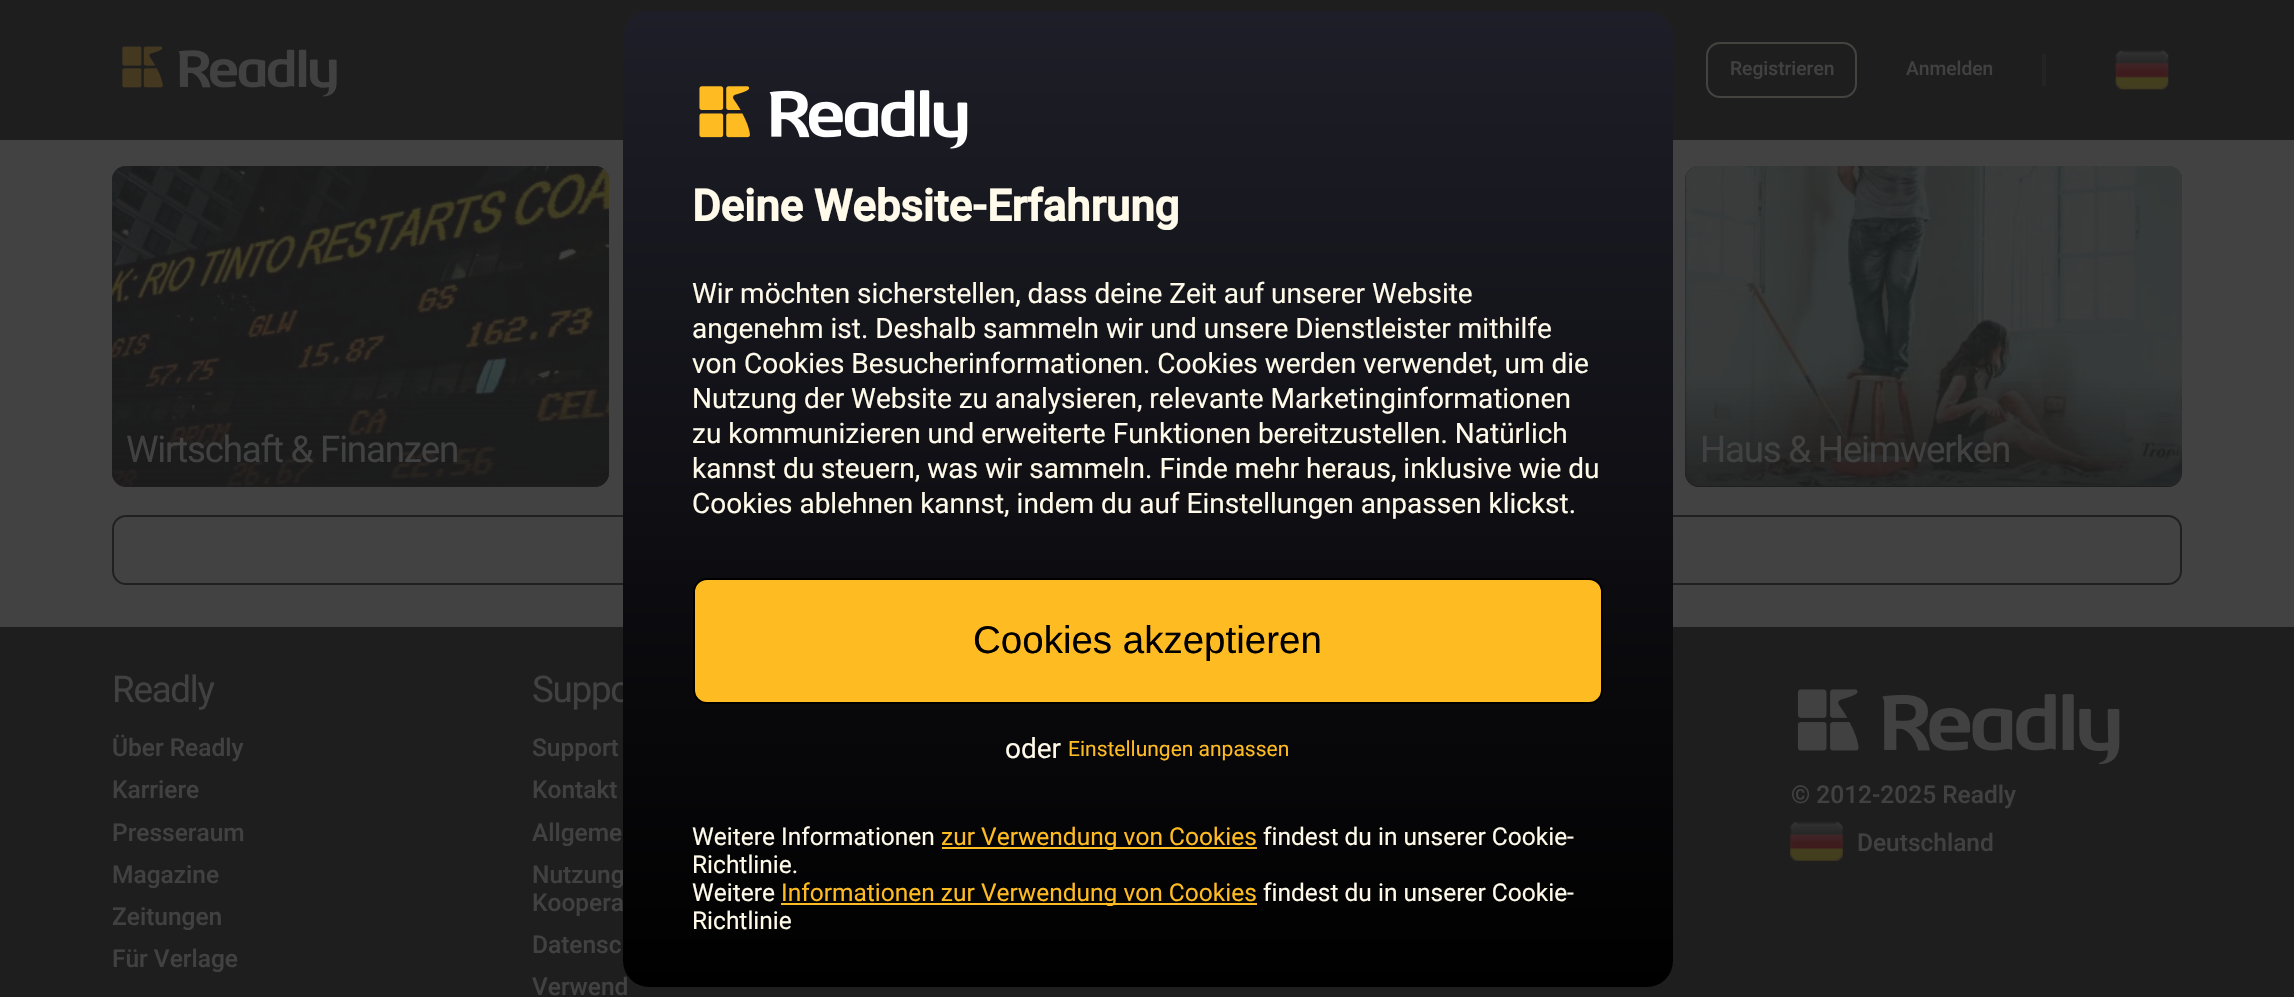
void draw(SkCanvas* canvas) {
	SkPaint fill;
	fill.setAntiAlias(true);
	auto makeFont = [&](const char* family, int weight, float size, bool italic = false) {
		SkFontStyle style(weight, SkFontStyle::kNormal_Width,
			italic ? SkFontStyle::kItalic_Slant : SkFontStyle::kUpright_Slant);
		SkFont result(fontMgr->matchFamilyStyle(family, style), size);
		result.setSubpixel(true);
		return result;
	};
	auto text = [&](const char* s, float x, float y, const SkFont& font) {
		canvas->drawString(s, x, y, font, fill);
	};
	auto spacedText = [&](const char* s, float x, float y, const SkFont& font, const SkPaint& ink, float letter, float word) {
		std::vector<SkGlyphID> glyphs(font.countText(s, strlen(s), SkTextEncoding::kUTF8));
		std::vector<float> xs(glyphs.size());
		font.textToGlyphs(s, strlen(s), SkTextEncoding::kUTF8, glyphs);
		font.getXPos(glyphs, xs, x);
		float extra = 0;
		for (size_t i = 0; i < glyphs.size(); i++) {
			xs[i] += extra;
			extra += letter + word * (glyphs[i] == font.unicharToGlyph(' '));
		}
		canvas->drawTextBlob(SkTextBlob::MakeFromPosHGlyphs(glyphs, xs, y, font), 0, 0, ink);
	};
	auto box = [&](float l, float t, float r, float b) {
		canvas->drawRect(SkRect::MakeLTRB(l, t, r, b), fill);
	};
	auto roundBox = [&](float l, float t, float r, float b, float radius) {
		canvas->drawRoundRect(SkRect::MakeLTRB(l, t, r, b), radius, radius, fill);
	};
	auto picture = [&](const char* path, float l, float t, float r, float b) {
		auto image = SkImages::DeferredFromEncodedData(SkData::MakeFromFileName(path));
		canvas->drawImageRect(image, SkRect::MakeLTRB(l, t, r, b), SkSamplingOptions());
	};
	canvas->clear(0xFF424243);
	fill.setColor(0xFF1E1E1F);
	box(0, 0, 2294, 140);
	picture("image0.png", 122, 46, 337, 97);
	fill.setStyle(SkPaint::kStroke_Style);
	fill.setStrokeWidth(2);
	fill.setColor(0xFF444340);
	canvas->drawRoundRect(SkRect::MakeLTRB(1707, 43, 1856, 97), 13, 13, fill);
	fill.setStyle(SkPaint::kFill_Style);
	fill.setColor(0xFF242426);
	box(2042, 54, 2046, 86);
	picture("image1.png", 2115, 50, 2169, 90);
	fill.setColor(0xFF202021);
	roundBox(112, 166, 609, 487, 14);
	picture("image3.png", 112, 166, 609, 487);
	{
		const SkColor colors[] = {0x001B1B1B, 0xA31B1B1B};
		const float stops[] = {0, 1};
		const SkPoint ends[] = {{361, 375}, {361, 487}};
		fill.setShader(SkGradientShader::MakeLinear(ends, colors, stops, 2, SkTileMode::kClamp));
		fill.setAlpha(255);
	}
	canvas->drawPath(SkPathBuilder().moveTo(112, 375).lineTo(609, 375).lineTo(609, 473).cubicTo(609, 480.5f, 602.5f, 487, 595, 487).lineTo(126, 487).cubicTo(118.5f, 487, 112, 480.5f, 112, 473).close().detach(), fill);
	fill.setShader(nullptr);
	fill.setColor(0x141B1B1B);
	roundBox(112, 166, 609, 487, 14);
	fill.setColor(0xFF202021);
	roundBox(1685, 166, 2182, 487, 14);
	picture("image4.png", 1685, 166, 2183, 487);
	{
		const SkColor colors[] = {0x001B1B1B, 0xA31B1B1B};
		const float stops[] = {0, 1};
		const SkPoint ends[] = {{1934, 375}, {1934, 487}};
		fill.setShader(SkGradientShader::MakeLinear(ends, colors, stops, 2, SkTileMode::kClamp));
		fill.setAlpha(255);
	}
	canvas->drawPath(SkPathBuilder().moveTo(1685, 375).lineTo(2182, 375).lineTo(2182, 473).cubicTo(2182, 480.5f, 2175.5f, 487, 2168, 487).lineTo(1699, 487).cubicTo(1691.5f, 487, 1685, 480.5f, 1685, 473).close().detach(), fill);
	fill.setShader(nullptr);
	fill.setColor(0x141B1B1B);
	roundBox(1685, 166, 2182, 487, 14);
	fill.setStyle(SkPaint::kStroke_Style);
	fill.setColor(0xFF202021);
	canvas->drawRoundRect(SkRect::MakeLTRB(113, 516, 2181, 584), 13, 13, fill);
	fill.setStyle(SkPaint::kFill_Style);
	fill.setColor(0xFF1E1E1F);
	box(0, 627, 2294, 997);
	picture("image5.png", 1797, 689, 2120, 765);
	picture("image6.png", 1790, 822, 1843, 861);
	auto font1 = makeFont("Roboto", 500, 19.25f);
	fill.setColor(0xFF414141);
	text("Registrieren", 1730, 75, font1);
	text("Anmelden", 1906, 75, font1);
	auto font2 = makeFont("Roboto", 400, 36.75f);
	spacedText("Wirtschaft & Finanzen", 126, 462, font2, fill, -1.25f, 0);
	spacedText("Haus & Heimwerken", 1700, 462, font2, fill, -1.25f, 0);
	spacedText("Readly", 112, 702, font2, fill, -1.25f, 0);
	auto font3 = makeFont("Roboto", 500, 24.5f);
	text("Über Readly", 112, 756, font3);
	text("Karriere", 112, 798, font3);
	text("Presseraum", 112, 841, font3);
	text("Magazine", 112, 883, font3);
	text("Zeitungen", 112, 925, font3);
	text("Für Verlage", 112, 967, font3);
	spacedText("Suppo", 532, 702, font2, fill, -1.25f, 0);
	text("Support", 532, 756, font3);
	text("Kontakt", 532, 798, font3);
	text("Allgeme", 532, 841, font3);
	text("Nutzung", 532, 883, font3);
	text("Koopera", 532, 911, font3);
	text("Datensc", 532, 953, font3);
	text("Verwend", 532, 995, font3);
	{
		const SkColor colors[] = {0xFF1E1E28, 0xFF000000};
		const float stops[] = {0, 1};
		const SkPoint ends[] = {{1148, 10}, {1148, 987}};
		fill.setShader(SkGradientShader::MakeLinear(ends, colors, stops, 2, SkTileMode::kClamp));
		fill.setAlpha(255);
	}
	roundBox(623, 11, 1673, 987, 26);
	auto font4 = makeFont("Roboto", 400, 24.5f);
	fill.setShader(nullptr);
	fill.setColor(0xFFFFFAE9);
	text("Richtlinie", 692, 929, font4);
	text("findest du in unserer Cookie-", 1263, 901, font4);
	fill.setColor(0xFFFFBB22);
	box(781, 903, 1257, 905);
	text("Informationen zur Verwendung von Cookies", 781, 901, font4);
	fill.setColor(0xFFFFFAE9);
	text("Weitere", 692, 901, font4);
	text("Richtlinie.", 692, 873, font4);
	text("findest du in unserer Cookie-", 1263, 845, font4);
	fill.setColor(0xFFFFBB22);
	box(942, 847, 1257, 849);
	text("zur Verwendung von Cookies", 941, 845, font4);
	fill.setColor(0xFFFFFAE9);
	text("Weitere Informationen", 692, 845, font4);
	auto font5 = makeFont("Roboto", 400, 21);
	fill.setColor(0xFFFFBB22);
	text("Einstellungen anpassen", 1068, 756, font5);
	auto font6 = makeFont("Roboto", 400, 28);
	fill.setColor(0xFFFFFAE9);
	text("oder", 1005, 758, font6);
	fill.setColor(0xFFFFBB22);
	canvas->drawRoundRect(SkRect::MakeLTRB(694, 579, 1602, 703), 13, 13, fill);
	fill.setStyle(SkPaint::kStroke_Style);
	fill.setColor(0xFF000000);
	canvas->drawRoundRect(SkRect::MakeLTRB(694, 579, 1602, 703), 13, 13, fill);
	auto font7 = makeFont("Liberation Sans", 400, 38.5f);
	fill.setStyle(SkPaint::kFill_Style);
	text("Cookies akzeptieren", 973, 653, font7);
	fill.setColor(0xFFFFFAE9);
	text("Cookies ablehnen kannst, indem du auf Einstellungen anpassen klickst.", 692, 513, font6);
	text("kannst du steuern, was wir sammeln. Finde mehr heraus, inklusive wie du", 692, 478, font6);
	text("zu kommunizieren und erweiterte Funktionen bereitzustellen. Natürlich", 692, 443, font6);
	text("Nutzung der Website zu analysieren, relevante Marketinginformationen", 692, 408, font6);
	text("von Cookies Besucherinformationen. Cookies werden verwendet, um die", 692, 373, font6);
	text("angenehm ist. Deshalb sammeln wir und unsere Dienstleister mithilfe", 692, 338, font6);
	text("Wir möchten sicherstellen, dass deine Zeit auf unserer Website", 692, 303, font6);
	auto font8 = makeFont("Roboto", 700, 43.75f);
	text("Deine Website-Erfahrung", 692, 221, font8);
	picture("image2.png", 699, 86, 968, 149);
	fill.setColor(0xFF414141);
	text("© 2012-2025 Readly", 1791, 803, font3);
	text("Deutschland", 1857, 851, font3);
}
